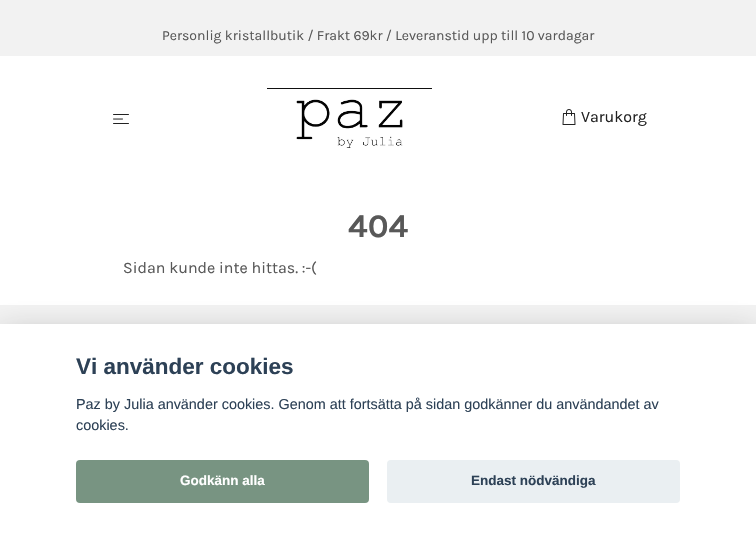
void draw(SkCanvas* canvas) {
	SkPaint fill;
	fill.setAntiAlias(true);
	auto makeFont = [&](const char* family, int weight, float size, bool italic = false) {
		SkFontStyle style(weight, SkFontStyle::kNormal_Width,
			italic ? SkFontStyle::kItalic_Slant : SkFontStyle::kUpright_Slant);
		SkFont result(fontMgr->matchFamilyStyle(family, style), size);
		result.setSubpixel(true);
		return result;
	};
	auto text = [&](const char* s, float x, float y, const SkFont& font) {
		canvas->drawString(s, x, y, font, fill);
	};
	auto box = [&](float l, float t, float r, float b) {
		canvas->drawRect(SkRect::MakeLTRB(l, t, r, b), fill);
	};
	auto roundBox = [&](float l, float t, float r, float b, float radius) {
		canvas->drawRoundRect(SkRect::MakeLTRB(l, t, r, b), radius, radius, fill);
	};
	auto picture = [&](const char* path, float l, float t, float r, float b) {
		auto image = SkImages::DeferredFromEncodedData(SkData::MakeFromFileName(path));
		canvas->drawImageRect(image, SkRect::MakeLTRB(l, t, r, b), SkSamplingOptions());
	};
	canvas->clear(0xFFFFFFFF);
	fill.setColor(0xFFF2F2F2);
	box(0, 0, 756, 56);
	picture("image0.png", 113, 114, 129, 124);
	picture("image1.png", 267, 88, 432, 148);
	picture("image2.png", 562, 109, 576, 125);
	box(0, 305, 756, 324);
	fill.setColor(0x47020203);
	fill.setMaskFilter(SkMaskFilter::MakeBlur(kNormal_SkBlurStyle, 15));
	canvas->drawRect(SkRect::MakeLTRB(0, 334, 756, 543), fill);
	fill.setMaskFilter(nullptr);
	fill.setColor(0xFFFFFFFF);
	box(0, 324, 756, 533);
	fill.setColor(0xFF789482);
	roundBox(76, 460, 369, 503, 4);
	fill.setColor(0xFFEAEFF2);
	roundBox(387, 460, 680, 503, 4);
	auto font1 = makeFont("Karla", 400, 14);
	fill.setColor(0xFF585858);
	text("Personlig kristallbutik / Frakt 69kr / Leveranstid upp till 10 vardagar", 162, 40, font1);
	auto font2 = makeFont("Karla", 400, 16);
	fill.setColor(0xFF222222);
	text("Varukorg", 581, 122, font2);
	auto font3 = makeFont("Karla", 700, 33);
	fill.setColor(0xFF585858);
	text("404", 348, 237, font3);
	text("Sidan kunde inte hittas. :-(", 123, 273, font2);
	auto font4 = makeFont("Liberation Sans", 700, 22.5f);
	fill.setColor(0xFF2D4156);
	text("Vi använder cookies", 76, 374, font4);
	auto font5 = makeFont("Liberation Sans", 400, 14.4f);
	text("Paz by Julia använder cookies. Genom att fortsätta på sidan godkänner du användandet av", 76, 409, font5);
	text("cookies.", 76, 430, font5);
	auto font6 = makeFont("Liberation Sans", 700, 13.5f);
	fill.setColor(0xFFFFFFFF);
	text("Godkänn alla", 180, 485, font6);
	fill.setColor(0xFF2D4156);
	text("Endast nödvändiga", 471, 485, font6);
}
